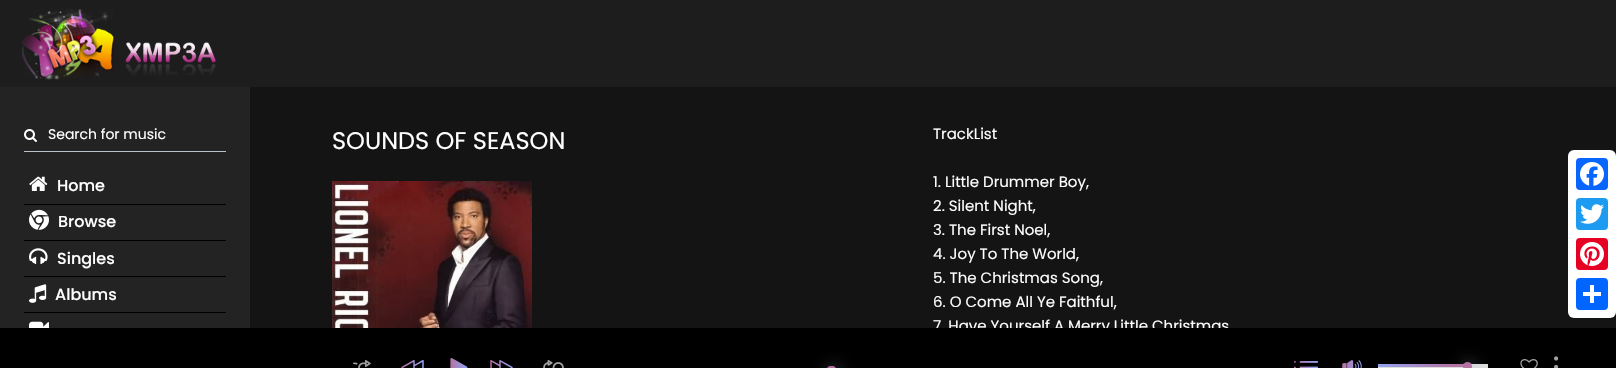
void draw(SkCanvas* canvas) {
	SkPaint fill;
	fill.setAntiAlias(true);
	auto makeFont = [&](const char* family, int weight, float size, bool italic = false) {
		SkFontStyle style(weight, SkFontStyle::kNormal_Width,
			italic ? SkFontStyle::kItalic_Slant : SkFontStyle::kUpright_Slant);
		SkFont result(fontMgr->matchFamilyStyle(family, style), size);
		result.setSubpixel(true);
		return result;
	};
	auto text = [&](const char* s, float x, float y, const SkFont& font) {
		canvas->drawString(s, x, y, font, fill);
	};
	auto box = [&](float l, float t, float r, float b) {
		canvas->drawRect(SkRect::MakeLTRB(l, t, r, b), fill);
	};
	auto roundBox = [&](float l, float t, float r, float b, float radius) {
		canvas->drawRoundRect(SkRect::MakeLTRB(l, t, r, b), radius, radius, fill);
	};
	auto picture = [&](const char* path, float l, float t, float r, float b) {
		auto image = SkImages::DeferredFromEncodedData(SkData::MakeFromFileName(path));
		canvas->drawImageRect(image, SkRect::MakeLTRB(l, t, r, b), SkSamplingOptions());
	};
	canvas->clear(0xFF000000);
	fill.setColor(0xFF1D1D1D);
	box(0, 0, 1616, 87);
	picture("image0.png", 21, 9, 216, 80);
	fill.setColor(0xFF232323);
	box(0, 87, 250, 328);
	picture("image1.png", 24, 129, 37, 142);
	fill.setColor(0xFFB9C1CA);
	box(24, 151, 226, 152);
	fill.setColor(0xFF000000);
	box(24, 204, 226, 205);
	picture("image2.png", 29, 176, 48, 191);
	box(24, 240, 226, 241);
	picture("image3.png", 29, 209, 49, 230);
	box(24, 276, 226, 277);
	picture("image4.png", 29, 248, 48, 264);
	box(24, 312, 226, 313);
	picture("image5.png", 29, 284, 47, 303);
	picture("image6.png", 29, 321, 49, 328);
	fill.setColor(0xFF141414);
	box(250, 87, 1616, 328);
	picture("image7.png", 332, 181, 532, 328);
	fill.setColor(0xFFFFFFFF);
	roundBox(1568, 150, 1616, 318, 6);
	fill.setColor(0xFF0866FF);
	roundBox(1576, 158, 1608, 190, 4);
	picture("image8.png", 1580, 162, 1604, 186);
	fill.setColor(0xFF1D9BF0);
	roundBox(1576, 198, 1608, 230, 4);
	picture("image9.png", 1580, 204, 1604, 224);
	fill.setColor(0xFFE60023);
	roundBox(1576, 238, 1608, 270, 4);
	picture("image10.png", 1580, 242, 1604, 266);
	fill.setColor(0xFF0166FF);
	roundBox(1576, 278, 1608, 310, 4);
	fill.setColor(0xFFFFFFFF);
	box(1590, 285, 1594, 303);
	box(1583, 292, 1601, 296);
	picture("image11.png", 353, 360, 371, 368);
	picture("image12.png", 401, 360, 424, 368);
	picture("image13.png", 450, 358, 468, 368);
	picture("image14.png", 490, 360, 513, 368);
	picture("image15.png", 543, 360, 564, 368);
	fill.setColor(0xCCA8B3D3);
	fill.setMaskFilter(SkMaskFilter::MakeBlur(kNormal_SkBlurStyle, 8));
	canvas->drawRoundRect(SkRect::MakeLTRB(829, 368, 838, 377), 4.5f, 4.5f, fill);
	fill.setMaskFilter(nullptr);
	fill.setColor(0xFFB571A1);
	roundBox(827, 366, 836, 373, 4.5f);
	picture("image16.png", 1294, 361, 1318, 368);
	picture("image17.png", 1342, 360, 1362, 368);
	fill.setColor(0xFFDDDDDD);
	box(1378, 364, 1488, 368);
	{
		const SkColor colors[] = {0xFF91A5F4, 0xFFB571A1};
		const float stops[] = {0, 0.86f};
		const SkPoint ends[] = {{1399, 343}, {1445, 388}};
		fill.setShader(SkGradientShader::MakeLinear(ends, colors, stops, 2, SkTileMode::kClamp));
		fill.setAlpha(255);
	}
	box(1378, 364, 1466, 367);
	fill.setShader(nullptr);
	fill.setColor(0xCCA8B3D3);
	fill.setMaskFilter(SkMaskFilter::MakeBlur(kNormal_SkBlurStyle, 8));
	canvas->drawRoundRect(SkRect::MakeLTRB(1465, 364, 1474, 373), 4.5f, 4.5f, fill);
	fill.setMaskFilter(nullptr);
	fill.setColor(0xFFB571A1);
	canvas->drawCircle(1467.5f, 366.5f, 4.5f, fill);
	picture("image18.png", 1520, 359, 1538, 368);
	picture("image19.png", 1554, 356, 1558, 368);
	auto font1 = makeFont("Poppins", 400, 14);
	fill.setColor(0xFFFFFFFF);
	text("Search for music", 48, 139, font1);
	auto font2 = makeFont("Poppins", 500, 16);
	text("Home", 57, 191, font2);
	text("Browse", 58, 227, font2);
	text("Singles", 57, 264, font2);
	text("Albums", 55, 300, font2);
	auto font3 = makeFont("Poppins", 400, 24);
	text("SOUNDS OF SEASON", 332, 149, font3);
	auto font4 = makeFont("Poppins", 400, 15);
	text("TrackList", 933, 139, font4);
	text("1. Little Drummer Boy,", 933, 187, font4);
	text("2. Silent Night,", 933, 211, font4);
	text("3. The First Noel,", 933, 235, font4);
	text("4. Joy To The World,", 933, 259, font4);
	text("5. The Christmas Song,", 933, 283, font4);
	text("6. O Come All Ye Faithful,", 933, 307, font4);
	canvas->save();
	canvas->clipRect(SkRect::MakeLTRB(250, 87, 1616, 328));
	text("7. Have Yourself A Merry Little Christmas", 933, 331, font4);
	canvas->restore();
}
